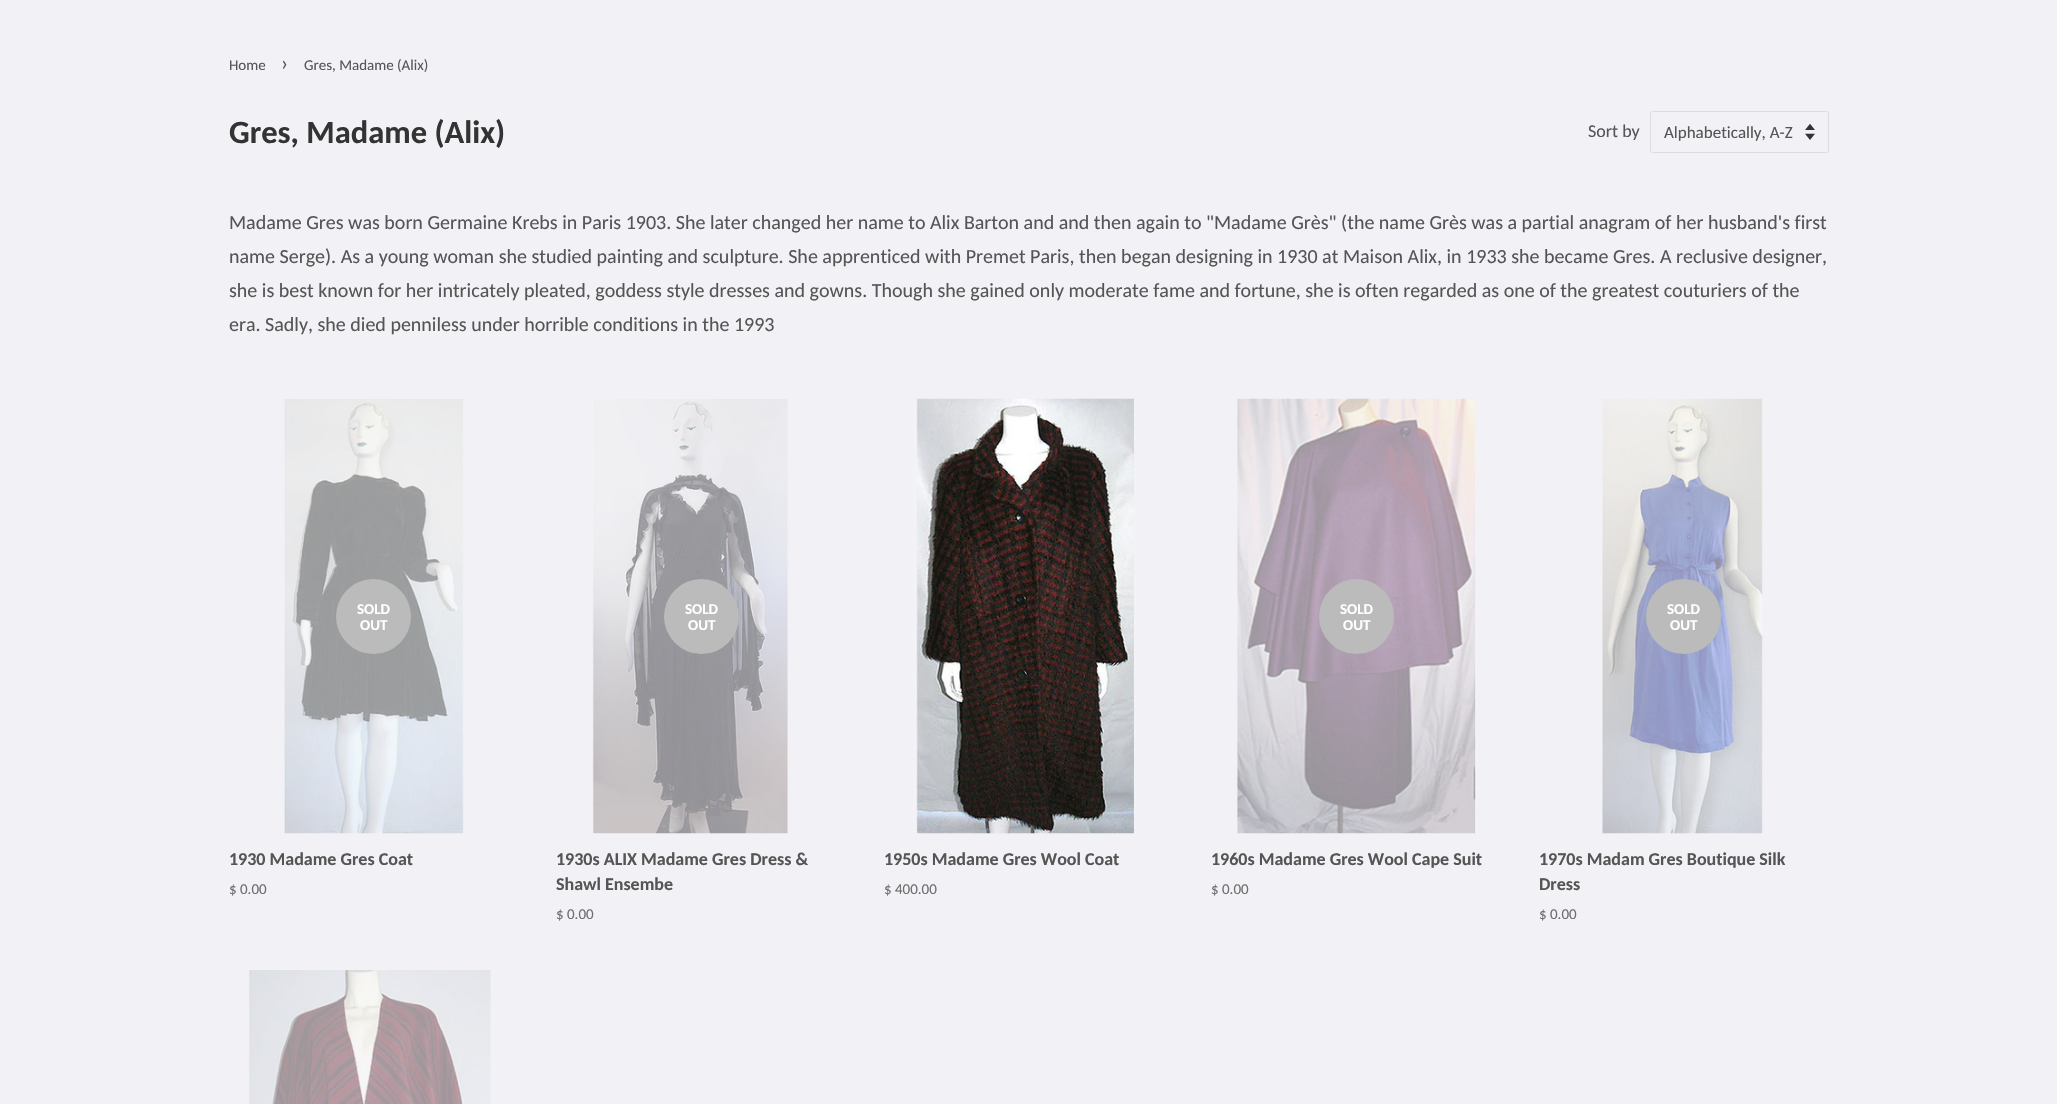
void draw(SkCanvas* canvas) {
	SkPaint fill;
	fill.setAntiAlias(true);
	auto makeFont = [&](const char* family, int weight, float size, bool italic = false) {
		SkFontStyle style(weight, SkFontStyle::kNormal_Width,
			italic ? SkFontStyle::kItalic_Slant : SkFontStyle::kUpright_Slant);
		SkFont result(fontMgr->matchFamilyStyle(family, style), size);
		result.setSubpixel(true);
		return result;
	};
	auto text = [&](const char* s, float x, float y, const SkFont& font) {
		canvas->drawString(s, x, y, font, fill);
	};
	auto picture = [&](const char* path, float l, float t, float r, float b) {
		auto image = SkImages::DeferredFromEncodedData(SkData::MakeFromFileName(path));
		canvas->drawImageRect(image, SkRect::MakeLTRB(l, t, r, b), SkSamplingOptions());
	};
	canvas->clear(0xFFF2F2F6);
	picture("image0.png", 1805, 124, 1815, 140);
	fill.setStyle(SkPaint::kStroke_Style);
	fill.setStrokeWidth(1);
	fill.setColor(0xFFDDDDDD);
	canvas->drawRoundRect(SkRect::MakeLTRB(1650.5f, 111.5f, 1828.5f, 152.5f), 2, 2, fill);
	picture("image1.png", 284, 399, 464, 834);
	fill.setStyle(SkPaint::kFill_Style);
	fill.setColor(0xFFBBBBBB);
	canvas->drawCircle(373.5f, 616.5f, 37.5f, fill);
	picture("image2.png", 592, 399, 788, 834);
	canvas->drawCircle(701.5f, 616.5f, 37.5f, fill);
	picture("image3.png", 913, 398, 1137, 834);
	picture("image4.png", 1237, 398, 1477, 834);
	canvas->drawCircle(1356.5f, 616.5f, 37.5f, fill);
	picture("image5.png", 1602, 398, 1763, 834);
	canvas->drawCircle(1683.5f, 616.5f, 37.5f, fill);
	picture("image6.png", 249, 970, 491, 1104);
	auto font1 = makeFont("Carlito", 400, 15);
	fill.setColor(0xFF555555);
	text("Home", 229, 70, font1);
	auto font2 = makeFont("Carlito", 400, 21);
	text("›", 281, 70, font2);
	text("Gres, Madame (Alix)", 304, 70, font1);
	auto font3 = makeFont("Carlito", 700, 32.5f);
	fill.setColor(0xFF333333);
	text("Gres, Madame (Alix)", 229, 143, font3);
	auto font4 = makeFont("Carlito", 400, 18);
	fill.setColor(0xFF555555);
	text("Sort by", 1588, 137, font4);
	auto font5 = makeFont("Carlito", 400, 17);
	text("Alphabetically, A-Z", 1664, 138, font5);
	auto font6 = makeFont("Carlito", 400, 20);
	text("Madame Gres was born Germaine Krebs in Paris 1903. She later changed her name to Alix Barton and and then again to \"Madame Grès\" (the name Grès was a partial anagram of her husband's first", 229, 229, font6);
	text("name Serge). As a young woman she studied painting and sculpture. She apprenticed with Premet Paris, then began designing in 1930 at Maison Alix, in 1933 she became Gres. A reclusive designer,", 229, 263, font6);
	text("she is best known for her intricately pleated, goddess style dresses and gowns. Though she gained only moderate fame and fortune, she is often regarded as one of the greatest couturiers of the", 229, 297, font6);
	text("era. Sadly, she died penniless under horrible conditions in the 1993", 229, 331, font6);
	auto font7 = makeFont("Carlito", 700, 15);
	fill.setColor(0xFFFFFFFF);
	text("SOLD", 357, 614, font7);
	text("OUT", 360, 630, font7);
	auto font8 = makeFont("Carlito", 700, 18);
	fill.setColor(0xFF555555);
	text("1930 Madame Gres Coat", 229, 865, font8);
	fill.setColor(0xFF6E6E6E);
	text("$ 0.00", 229, 894, font1);
	fill.setColor(0xFFFFFFFF);
	text("SOLD", 685, 614, font7);
	text("OUT", 688, 630, font7);
	fill.setColor(0xFF555555);
	text("1930s ALIX Madame Gres Dress &", 556, 865, font8);
	text("Shawl Ensembe", 556, 890, font8);
	fill.setColor(0xFF6E6E6E);
	text("$ 0.00", 556, 919, font1);
	fill.setColor(0xFF555555);
	text("1950s Madame Gres Wool Coat", 884, 865, font8);
	fill.setColor(0xFF6E6E6E);
	text("$ 400.00", 884, 894, font1);
	fill.setColor(0xFFFFFFFF);
	text("SOLD", 1340, 614, font7);
	text("OUT", 1343, 630, font7);
	fill.setColor(0xFF555555);
	text("1960s Madame Gres Wool Cape Suit", 1211, 865, font8);
	fill.setColor(0xFF6E6E6E);
	text("$ 0.00", 1211, 894, font1);
	fill.setColor(0xFFFFFFFF);
	text("SOLD", 1667, 614, font7);
	text("OUT", 1670, 630, font7);
	fill.setColor(0xFF555555);
	text("1970s Madam Gres Boutique Silk", 1539, 865, font8);
	text("Dress", 1539, 890, font8);
	fill.setColor(0xFF6E6E6E);
	text("$ 0.00", 1539, 919, font1);
}
